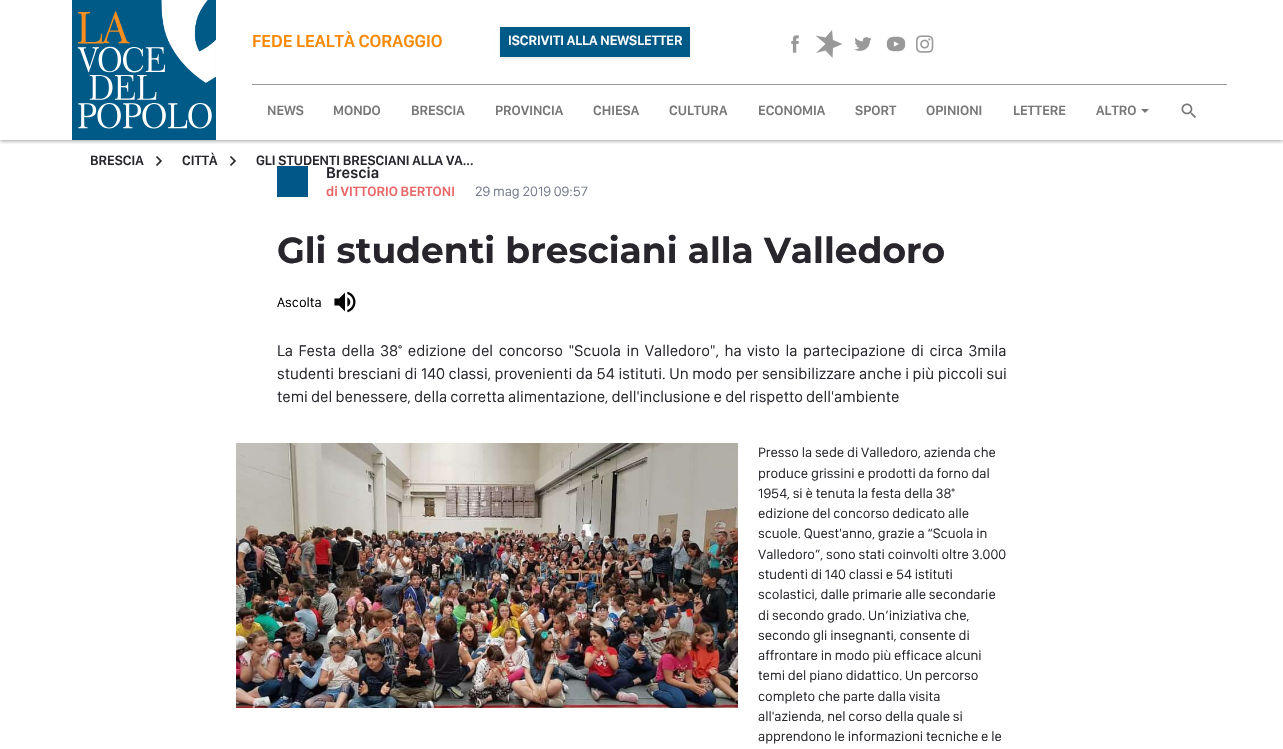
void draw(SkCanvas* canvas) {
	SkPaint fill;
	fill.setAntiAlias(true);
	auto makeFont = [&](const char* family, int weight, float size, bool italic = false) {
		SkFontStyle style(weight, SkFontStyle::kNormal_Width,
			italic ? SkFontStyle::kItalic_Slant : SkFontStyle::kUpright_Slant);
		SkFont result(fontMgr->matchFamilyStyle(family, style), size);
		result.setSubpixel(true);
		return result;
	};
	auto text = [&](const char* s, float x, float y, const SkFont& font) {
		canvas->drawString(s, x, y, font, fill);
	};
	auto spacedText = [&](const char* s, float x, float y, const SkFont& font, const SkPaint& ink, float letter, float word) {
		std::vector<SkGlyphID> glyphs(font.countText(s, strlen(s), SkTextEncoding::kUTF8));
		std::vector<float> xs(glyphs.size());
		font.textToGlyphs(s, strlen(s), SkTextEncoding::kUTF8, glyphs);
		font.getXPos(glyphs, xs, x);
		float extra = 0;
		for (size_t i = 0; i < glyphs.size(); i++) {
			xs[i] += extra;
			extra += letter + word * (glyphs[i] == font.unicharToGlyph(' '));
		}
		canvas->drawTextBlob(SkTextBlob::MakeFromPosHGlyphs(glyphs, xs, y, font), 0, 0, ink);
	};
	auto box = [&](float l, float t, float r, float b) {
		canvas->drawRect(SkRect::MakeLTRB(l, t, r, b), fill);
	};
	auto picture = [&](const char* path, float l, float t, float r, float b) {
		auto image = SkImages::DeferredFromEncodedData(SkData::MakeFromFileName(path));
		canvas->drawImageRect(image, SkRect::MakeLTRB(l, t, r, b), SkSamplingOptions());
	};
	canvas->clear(0xFFFFFFFF);
	canvas->save();
	canvas->clipRect(SkRect::MakeLTRB(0, 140, 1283, 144));
	fill.setColor(0x5E000000);
	fill.setMaskFilter(SkMaskFilter::MakeBlur(kNormal_SkBlurStyle, 2));
	canvas->drawRect(SkRect::MakeLTRB(0, 1, 1283, 141), fill);
	fill.setMaskFilter(nullptr);
	canvas->restore();
	picture("image0.png", 72, 0, 216, 140);
	fill.setColor(0xFF999999);
	box(252, 84, 1227, 85);
	fill.setColor(0x14000000);
	fill.setMaskFilter(SkMaskFilter::MakeBlur(kNormal_SkBlurStyle, 2));
	canvas->drawRect(SkRect::MakeLTRB(500, 29, 690, 59), fill);
	fill.setMaskFilter(nullptr);
	fill.setColor(0xFF005A87);
	box(500, 27, 690, 57);
	picture("image1.png", 791, 35, 799, 53);
	fill.setColor(0xFF999999);
	canvas->drawPath(SkPathBuilder().moveTo(832, 30).lineTo(825.5f, 37.5f).lineTo(815.5f, 35.5f).lineTo(825.5f, 44).lineTo(816, 53).lineTo(825.5f, 50.5f).lineTo(832.5f, 58).lineTo(833, 48).lineTo(842.5f, 44).lineTo(833, 40).close().detach(), fill);
	picture("image2.png", 854, 37, 872, 51);
	picture("image3.png", 886, 36, 906, 52);
	picture("image4.png", 916, 35, 934, 53);
	fill.setColor(0xFF777777);
	canvas->drawPath(SkPathBuilder().moveTo(1141, 109).lineTo(1149, 109).lineTo(1145, 113).close().detach(), fill);
	picture("image5.png", 1181, 103, 1196, 118);
	picture("image6.png", 156, 156, 162, 166);
	picture("image6.png", 230, 156, 236, 166);
	fill.setColor(0xFF015788);
	box(277, 166, 308, 197);
	picture("image7.png", 334, 291, 356, 313);
	picture("image8.png", 236, 443, 738, 708);
	auto font1 = makeFont("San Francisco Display", 600, 18);
	fill.setColor(0xFFFA8801);
	text("FEDE LEALTÀ CORAGGIO", 252, 47, font1);
	auto font2 = makeFont("San Francisco Display", 600, 14);
	fill.setColor(0xFFFFFFFF);
	text("ISCRIVITI ALLA NEWSLETTER", 508, 45, font2);
	fill.setColor(0xFF777777);
	text("NEWS", 267, 115, font2);
	text("MONDO", 333, 115, font2);
	text("BRESCIA", 411, 115, font2);
	text("PROVINCIA", 495, 115, font2);
	text("CHIESA", 593, 115, font2);
	text("CULTURA", 669, 115, font2);
	text("ECONOMIA", 758, 115, font2);
	text("SPORT", 855, 115, font2);
	text("OPINIONI", 926, 115, font2);
	text("LETTERE", 1013, 115, font2);
	text("ALTRO", 1096, 115, font2);
	fill.setColor(0xFF28262C);
	text("BRESCIA", 90, 165, font2);
	text("CITTÀ", 182, 165, font2);
	text("GLI STUDENTI BRESCIANI ALLA VA...", 256, 165, font2);
	auto font3 = makeFont("San Francisco Display", 600, 16);
	text("Brescia", 326, 178, font3);
	fill.setColor(0xFFEA6768);
	text("di VITTORIO BERTONI", 326, 196, font2);
	auto font4 = makeFont("San Francisco Display", 400, 14);
	fill.setColor(0xFF757B8C);
	text("29 mag 2019 09:57", 475, 196, font4);
	auto font5 = makeFont("Montserrat", 100, 36);
	fill.setColor(0xFF28262C);
	text("Gli studenti bresciani alla Valledoro", 277, 263, font5);
	fill.setColor(0xFF000000);
	text("Ascolta", 277, 307, font4);
	auto font6 = makeFont("San Francisco Display", 400, 16);
	fill.setColor(0xFF28262C);
	spacedText("La Festa della 38° edizione del concorso \"Scuola in Valledoro\", ha visto la partecipazione di circa 3mila", 277, 356, font6, fill, 0, 2.4f);
	spacedText("studenti bresciani di 140 classi, provenienti da 54 istituti. Un modo per sensibilizzare anche i più piccoli sui", 277, 379, font6, fill, 0, 0.4f);
	text("temi del benessere, della corretta alimentazione, dell'inclusione e del rispetto dell'ambiente", 277, 402, font6);
	text("Presso la sede di Valledoro, azienda che", 758, 457, font4);
	text("produce grissini e prodotti da forno dal", 758, 478, font4);
	text("1954, si è tenuta la festa della 38°", 758, 498, font4);
	text("edizione del concorso dedicato alle", 758, 518, font4);
	text("scuole. Quest'anno, grazie a “Scuola in", 758, 538, font4);
	text("Valledoro”, sono stati coinvolti oltre 3.000", 758, 559, font4);
	text("studenti di 140 classi e 54 istituti", 758, 579, font4);
	text("scolastici, dalle primarie alle secondarie", 758, 599, font4);
	text("di secondo grado. Un’iniziativa che,", 758, 620, font4);
	text("secondo gli insegnanti, consente di", 758, 640, font4);
	text("affrontare in modo più efficace alcuni", 758, 660, font4);
	text("temi del piano didattico. Un percorso", 758, 680, font4);
	text("completo che parte dalla visita", 758, 701, font4);
	text("all'azienda, nel corso della quale si", 758, 721, font4);
	text("apprendono le informazioni tecniche e le", 758, 741, font4);
}
